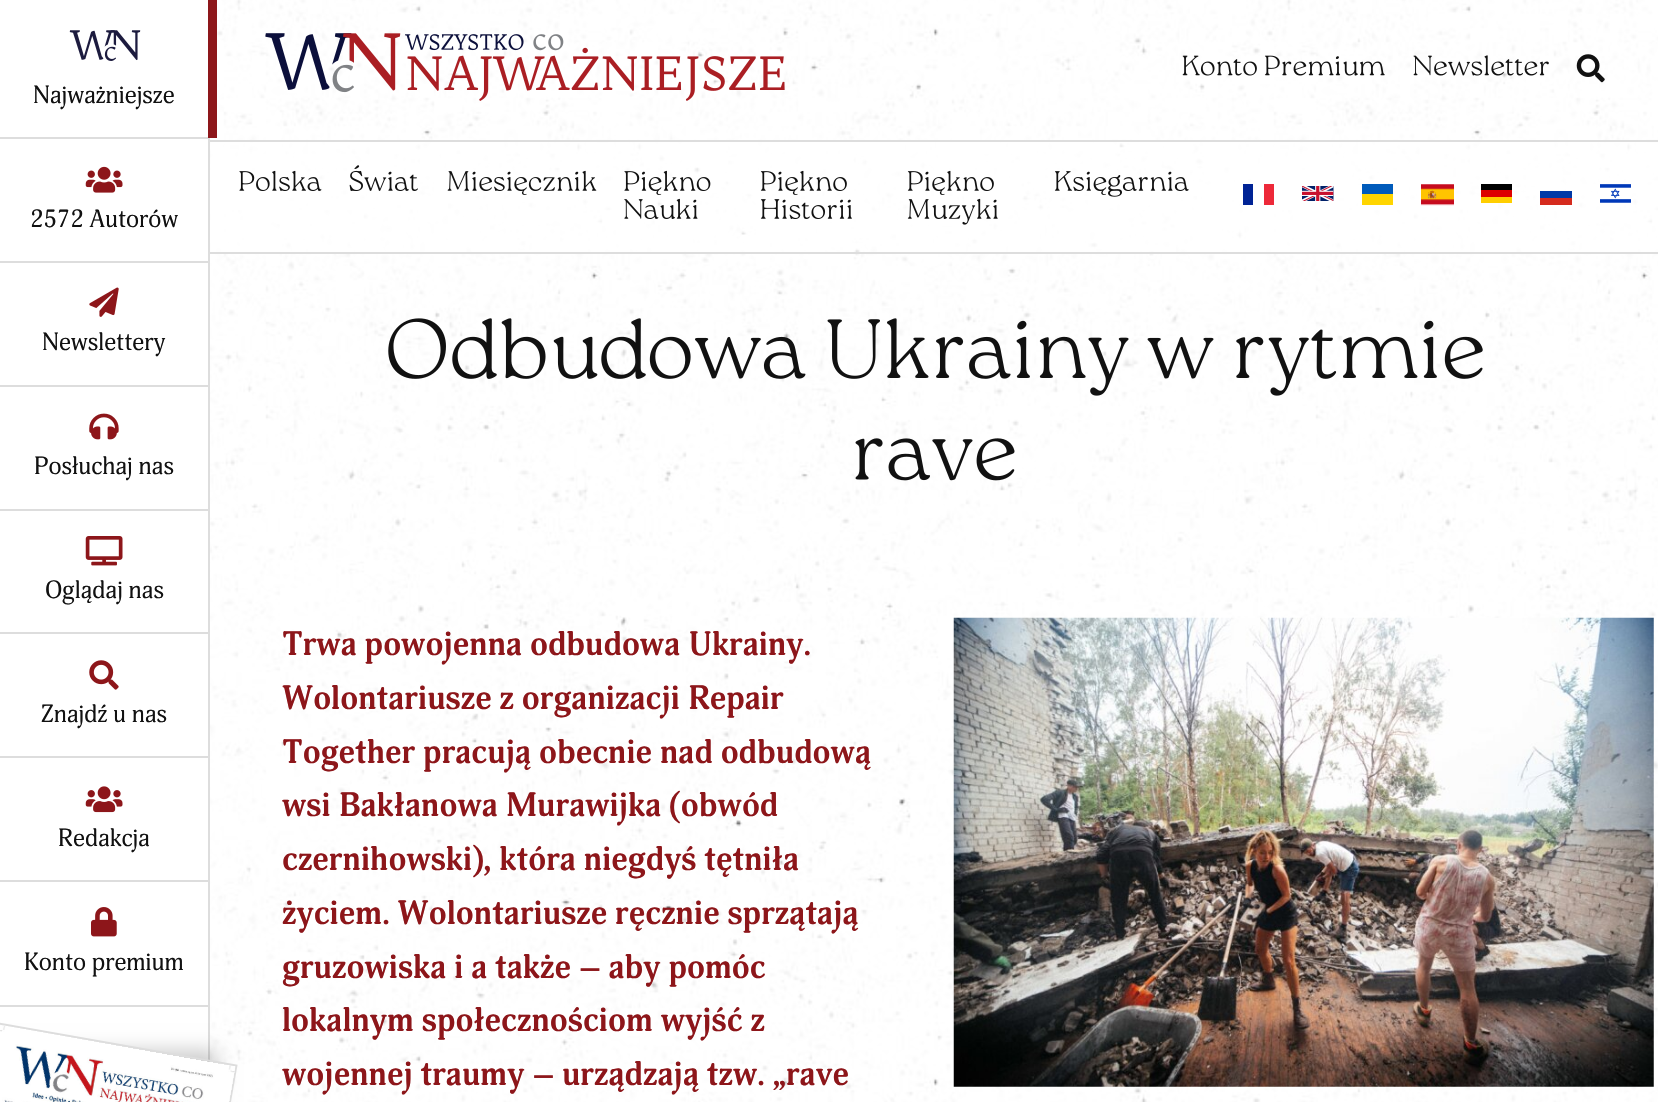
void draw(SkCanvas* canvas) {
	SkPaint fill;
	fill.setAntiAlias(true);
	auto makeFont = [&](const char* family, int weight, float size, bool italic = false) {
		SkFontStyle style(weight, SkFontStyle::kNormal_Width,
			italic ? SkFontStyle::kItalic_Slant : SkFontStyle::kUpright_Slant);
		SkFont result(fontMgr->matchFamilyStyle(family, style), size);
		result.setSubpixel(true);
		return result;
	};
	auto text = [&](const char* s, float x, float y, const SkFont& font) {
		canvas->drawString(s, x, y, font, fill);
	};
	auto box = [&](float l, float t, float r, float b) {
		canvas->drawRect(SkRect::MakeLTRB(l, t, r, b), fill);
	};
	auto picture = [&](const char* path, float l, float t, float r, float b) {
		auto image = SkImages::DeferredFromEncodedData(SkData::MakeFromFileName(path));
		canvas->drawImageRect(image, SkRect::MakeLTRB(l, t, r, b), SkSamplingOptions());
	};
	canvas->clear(0xFFFFFFFF);
	picture("image0.png", 210, 0, 1658, 1102);
	picture("image1.png", 265, 33, 785, 101);
	picture("image2.png", 1182, 55, 1385, 76);
	picture("image3.png", 1413, 55, 1549, 76);
	picture("image4.png", 1576, 54, 1605, 83);
	fill.setColor(0xFFDDDDDD);
	box(208, 138, 210, 1062);
	fill.setColor(0xFF8D161A);
	box(208, 0, 217, 138);
	fill.setColor(0xFFDDDDDD);
	box(0, 137, 208, 139);
	picture("image5.png", 69, 30, 141, 61);
	box(0, 261, 208, 263);
	picture("image6.png", 85, 166, 123, 193);
	box(0, 385, 208, 387);
	picture("image7.png", 89, 287, 119, 317);
	box(0, 509, 208, 511);
	picture("image8.png", 89, 413, 119, 440);
	box(0, 632, 208, 634);
	picture("image9.png", 85, 536, 123, 566);
	box(0, 756, 208, 758);
	picture("image10.png", 89, 660, 119, 690);
	box(0, 880, 208, 882);
	picture("image11.png", 85, 786, 123, 813);
	box(0, 1005, 208, 1007);
	picture("image12.png", 91, 907, 117, 937);
	fill.setColor(0x33000000);
	fill.setMaskFilter(SkMaskFilter::MakeBlur(kNormal_SkBlurStyle, 9));
	canvas->drawRect(SkRect::MakeLTRB(-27, 1050, 217, 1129), fill);
	fill.setMaskFilter(nullptr);
	fill.setStyle(SkPaint::kStroke_Style);
	fill.setStrokeWidth(1.8f);
	fill.setColor(0xFFDDDDDD);
	canvas->drawPath(SkPathBuilder().moveTo(-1.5f, 1023.5f).lineTo(236.5f, 1065.5f).lineTo(175, 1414).lineTo(-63, 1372).close().detach(), fill);
	picture("image13.png", 0, 1026, 235, 1102);
	fill.setStyle(SkPaint::kFill_Style);
	fill.setColor(0xB3FFFFFF);
	box(211, 142, 1658, 252);
	fill.setColor(0xFFDDDDDD);
	box(210, 140, 1658, 142);
	box(210, 252, 1658, 254);
	picture("image14.png", 239, 170, 322, 191);
	picture("image15.png", 349, 165, 418, 191);
	picture("image16.png", 447, 170, 597, 195);
	picture("image17.png", 624, 170, 711, 195);
	picture("image18.png", 624, 198, 698, 219);
	picture("image19.png", 760, 170, 847, 195);
	picture("image20.png", 760, 199, 852, 219);
	picture("image21.png", 907, 170, 994, 195);
	picture("image22.png", 907, 198, 998, 225);
	picture("image23.png", 1054, 171, 1189, 197);
	fill.setColor(0xFF002395);
	box(1243, 184, 1253, 205);
	fill.setColor(0xFFED2939);
	box(1264, 184, 1274, 205);
	picture("image24.png", 1302, 186, 1334, 201);
	fill.setColor(0xFF005BBB);
	box(1362, 184, 1393, 194);
	fill.setColor(0xFFFFD500);
	box(1362, 194, 1393, 205);
	picture("image25.png", 1421, 184, 1454, 206);
	fill.setColor(0xFF000000);
	box(1481, 184, 1512, 190);
	fill.setColor(0xFFDD0000);
	box(1481, 190, 1512, 197);
	fill.setColor(0xFFFFCE00);
	box(1481, 197, 1512, 203);
	fill.setColor(0xFF0039A6);
	box(1540, 191, 1572, 198);
	fill.setColor(0xFFD52B1E);
	box(1540, 198, 1572, 205);
	picture("image26.png", 1600, 184, 1631, 203);
	picture("image27.png", 388, 318, 1483, 396);
	picture("image28.png", 855, 438, 1015, 481);
	picture("image29.png", 953, 617, 1654, 1087);
	auto font1 = makeFont("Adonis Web", 400, 24.5f);
	fill.setColor(0xFF111111);
	text("Najważniejsze", 33, 103, font1);
	text("2572 Autorów", 30, 227, font1);
	text("Newslettery", 42, 350, font1);
	text("Posłuchaj nas", 34, 474, font1);
	text("Oglądaj nas", 45, 598, font1);
	text("Znajdź u nas", 41, 722, font1);
	text("Redakcja", 58, 846, font1);
	text("Konto premium", 24, 970, font1);
	auto font2 = makeFont("Adonis Web", 700, 33.6f);
	fill.setColor(0xFF8D161A);
	text("Trwa powojenna odbudowa Ukrainy.", 282, 655, font2);
	text("Wolontariusze z organizacji Repair", 282, 709, font2);
	text("Together pracują obecnie nad odbudową", 282, 763, font2);
	text("wsi Bakłanowa Murawijka (obwód", 282, 816, font2);
	text("czernihowski), która niegdyś tętniła", 282, 870, font2);
	text("życiem. Wolontariusze ręcznie sprzątają", 282, 924, font2);
	text("gruzowiska i a także – aby pomóc", 282, 978, font2);
	text("lokalnym społecznościom wyjść z", 282, 1031, font2);
	text("wojennej traumy – urządzają tzw. „rave", 282, 1085, font2);
}
